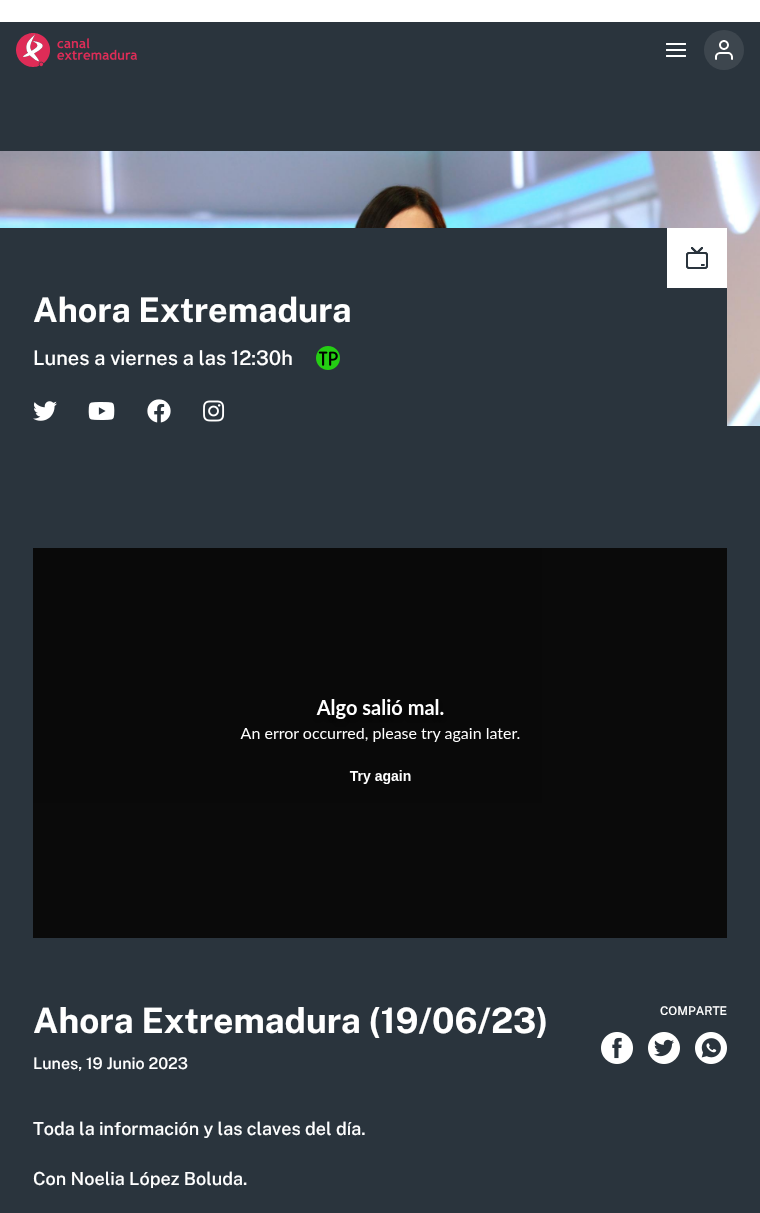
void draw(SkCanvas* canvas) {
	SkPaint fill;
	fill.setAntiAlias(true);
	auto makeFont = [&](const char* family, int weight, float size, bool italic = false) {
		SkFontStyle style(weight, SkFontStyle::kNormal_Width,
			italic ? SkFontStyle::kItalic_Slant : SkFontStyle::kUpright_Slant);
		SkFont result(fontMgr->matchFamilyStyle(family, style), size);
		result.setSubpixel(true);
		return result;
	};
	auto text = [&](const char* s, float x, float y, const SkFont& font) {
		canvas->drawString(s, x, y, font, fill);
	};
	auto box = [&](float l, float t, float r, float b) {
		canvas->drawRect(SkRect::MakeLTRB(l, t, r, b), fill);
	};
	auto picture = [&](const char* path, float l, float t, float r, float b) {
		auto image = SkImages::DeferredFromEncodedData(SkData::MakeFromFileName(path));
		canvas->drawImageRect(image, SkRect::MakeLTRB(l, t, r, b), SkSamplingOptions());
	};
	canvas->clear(0xFF2A343D);
	fill.setColor(0xFFFFFFFF);
	box(0, 0, 760, 22);
	picture("image0.png", 16, 33, 137, 67);
	picture("image1.png", 666, 43, 686, 57);
	fill.setColor(0xFF3D464E);
	canvas->drawCircle(724, 50, 20, fill);
	picture("image2.png", 715, 40, 733, 60);
	picture("image3.png", 0, 151, 760, 426);
	fill.setColor(0xFF2A343D);
	box(0, 228, 727, 426);
	fill.setColor(0xFFFFFFFF);
	box(667, 228, 727, 288);
	picture("image4.png", 686, 247, 708, 269);
	picture("image5.png", 316, 346, 340, 370);
	picture("image6.png", 33, 401, 57, 421);
	picture("image7.png", 88, 402, 115, 420);
	picture("image8.png", 147, 399, 171, 423);
	picture("image9.png", 203, 400, 225, 422);
	picture("image10.png", 33, 548, 727, 938);
	picture("image11.png", 601, 1032, 633, 1064);
	picture("image12.png", 648, 1032, 680, 1064);
	picture("image13.png", 695, 1032, 727, 1064);
	auto font1 = makeFont("Public Sans", 700, 34);
	text("Ahora Extremadura", 33, 322, font1);
	auto font2 = makeFont("Public Sans", 500, 20);
	text("Lunes a viernes a las 12:30h", 33, 365, font2);
	auto font3 = makeFont("Public Sans", 700, 35);
	text("Ahora Extremadura (19/06/23)", 33, 1033, font3);
	auto font4 = makeFont("Public Sans", 500, 16);
	text("Lunes, 19 Junio 2023", 33, 1069, font4);
	auto font5 = makeFont("Public Sans", 500, 12);
	text("COMPARTE", 660, 1015, font5);
	auto font6 = makeFont("Public Sans", 500, 18);
	text("Toda la información y las claves del día.", 33, 1135, font6);
	text("Con Noelia López Boluda.", 33, 1185, font6);
}
